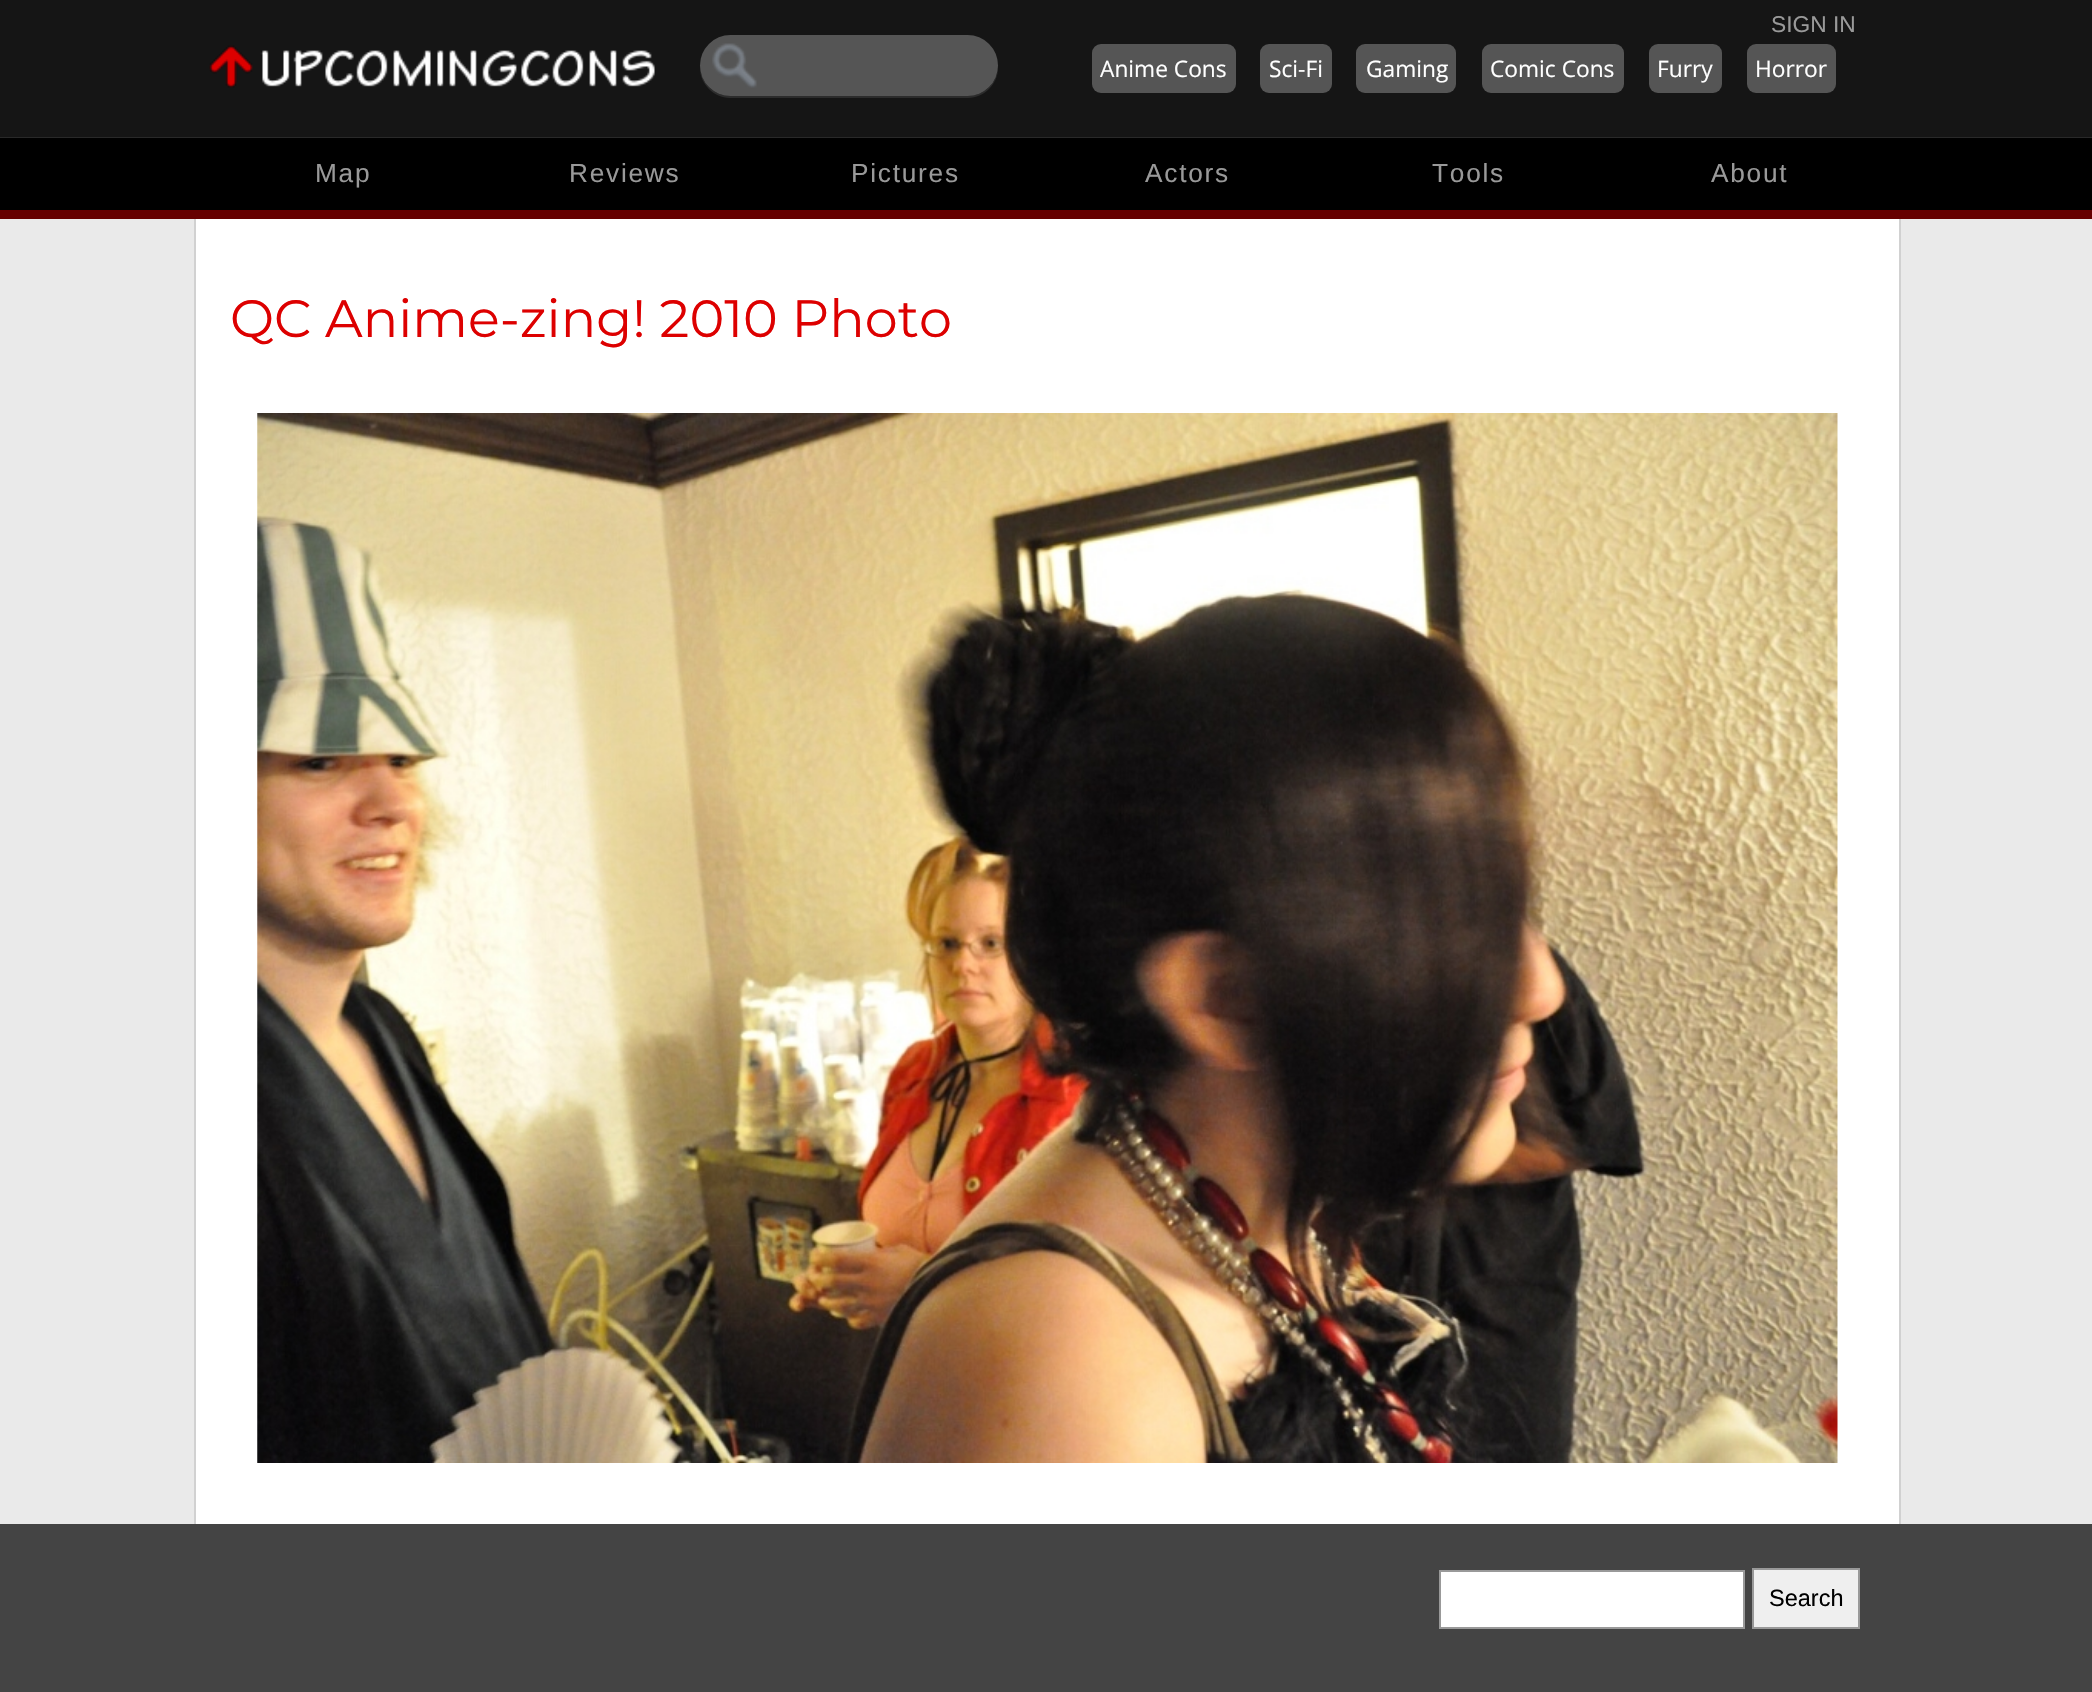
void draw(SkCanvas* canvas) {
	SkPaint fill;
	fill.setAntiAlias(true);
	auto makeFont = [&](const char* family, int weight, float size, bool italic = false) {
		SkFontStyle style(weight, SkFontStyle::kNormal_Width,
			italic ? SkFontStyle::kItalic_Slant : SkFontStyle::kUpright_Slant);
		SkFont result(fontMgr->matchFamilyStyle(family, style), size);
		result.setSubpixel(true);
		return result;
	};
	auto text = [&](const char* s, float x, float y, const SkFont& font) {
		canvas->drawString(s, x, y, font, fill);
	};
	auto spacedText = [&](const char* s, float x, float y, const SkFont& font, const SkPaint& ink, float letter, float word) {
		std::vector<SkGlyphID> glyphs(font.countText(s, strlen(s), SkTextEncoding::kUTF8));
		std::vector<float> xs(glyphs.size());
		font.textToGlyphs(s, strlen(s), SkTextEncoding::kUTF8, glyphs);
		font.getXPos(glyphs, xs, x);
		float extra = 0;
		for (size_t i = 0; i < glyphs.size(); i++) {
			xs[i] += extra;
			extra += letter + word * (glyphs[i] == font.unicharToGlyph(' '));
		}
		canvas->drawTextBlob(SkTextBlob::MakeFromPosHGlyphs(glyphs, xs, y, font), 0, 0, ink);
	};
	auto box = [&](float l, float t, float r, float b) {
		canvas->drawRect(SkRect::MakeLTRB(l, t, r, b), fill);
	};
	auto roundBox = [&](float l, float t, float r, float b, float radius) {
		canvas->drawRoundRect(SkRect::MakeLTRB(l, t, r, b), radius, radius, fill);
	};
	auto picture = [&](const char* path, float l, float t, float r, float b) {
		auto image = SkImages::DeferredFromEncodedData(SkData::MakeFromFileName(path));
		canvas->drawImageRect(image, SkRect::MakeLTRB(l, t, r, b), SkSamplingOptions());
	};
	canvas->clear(0xFF444444);
	fill.setColor(0xFF151515);
	box(0, 0, 2092, 137);
	fill.setColor(0xFF292929);
	box(0, 137, 2092, 138);
	picture("image0.png", 209, 45, 655, 88);
	fill.setColor(0xFF2C2C2C);
	canvas->drawPath(SkPathBuilder().moveTo(700, 67).lineTo(700, 68).cubicTo(700, 84, 714, 98, 730, 98).lineTo(968, 98).cubicTo(984, 98, 998, 84, 998, 68).cubicTo(998, 64, 998, 62, 997, 59).lineTo(998, 66).cubicTo(998, 83, 984, 96, 967, 96).lineTo(731, 96).cubicTo(714, 96, 701, 83, 700, 67).close().detach(), fill);
	fill.setColor(0xFF555555);
	roundBox(700, 35, 998, 96, 30.5f);
	picture("image1.png", 712, 43, 757, 88);
	roundBox(1092, 44, 1236, 93, 9);
	roundBox(1260, 44, 1332, 93, 9);
	roundBox(1356, 44, 1456, 93, 9);
	roundBox(1482, 44, 1624, 93, 9);
	roundBox(1649, 44, 1722, 93, 9);
	roundBox(1747, 44, 1836, 93, 9);
	fill.setColor(0xFF000000);
	box(0, 138, 2092, 210);
	fill.setColor(0xFF660000);
	box(0, 210, 2092, 219);
	fill.setColor(0xFFEAEAEA);
	box(0, 219, 2092, 1524);
	fill.setColor(0xFFFFFFFF);
	box(196, 219, 1899, 1524);
	fill.setColor(0xFFD1D1D1);
	box(1899, 219, 1901, 1524);
	box(194, 219, 196, 1524);
	picture("image2.png", 257, 413, 1838, 1463);
	fill.setColor(0xFFFFFFFF);
	canvas->drawRect(SkRect::MakeLTRB(1440, 1571, 1744, 1628), fill);
	fill.setStyle(SkPaint::kStroke_Style);
	fill.setStrokeWidth(2);
	fill.setColor(0xFF999999);
	canvas->drawRect(SkRect::MakeLTRB(1440, 1571, 1744, 1628), fill);
	fill.setStyle(SkPaint::kFill_Style);
	fill.setColor(0xFFEFEFEF);
	canvas->drawRect(SkRect::MakeLTRB(1753, 1569, 1859, 1628), fill);
	fill.setStyle(SkPaint::kStroke_Style);
	fill.setColor(0xFF999999);
	canvas->drawRect(SkRect::MakeLTRB(1753, 1569, 1859, 1628), fill);
	auto font1 = makeFont("Liberation Sans", 400, 22.75f);
	fill.setStyle(SkPaint::kFill_Style);
	text("SIGN IN", 1771, 32, font1);
	auto font2 = makeFont("Open Sans", 400, 22.75f);
	fill.setColor(0xFFFFFFFF);
	text("Anime Cons", 1100, 77, font2);
	text("Sci-Fi", 1269, 77, font2);
	text("Gaming", 1366, 77, font2);
	text("Comic Cons", 1490, 77, font2);
	text("Furry", 1657, 77, font2);
	text("Horror", 1755, 77, font2);
	auto font3 = makeFont("Liberation Sans", 400, 26.25f);
	fill.setColor(0xFF999999);
	spacedText("Map", 315, 182, font3, fill, 1.75f, 0);
	spacedText("Reviews", 569, 182, font3, fill, 1.75f, 0);
	spacedText("Pictures", 851, 182, font3, fill, 1.75f, 0);
	spacedText("Actors", 1145, 182, font3, fill, 1.75f, 0);
	spacedText("Tools", 1432, 182, font3, fill, 1.75f, 0);
	spacedText("About", 1711, 182, font3, fill, 1.75f, 0);
	auto font4 = makeFont("Montserrat", 100, 52.5f);
	fill.setColor(0xFFDD0000);
	text("QC Anime-zing! 2010 Photo", 230, 337, font4);
	auto font5 = makeFont("Liberation Sans", 400, 23.5f);
	fill.setColor(0xFF000000);
	text("Search", 1769, 1606, font5);
}
